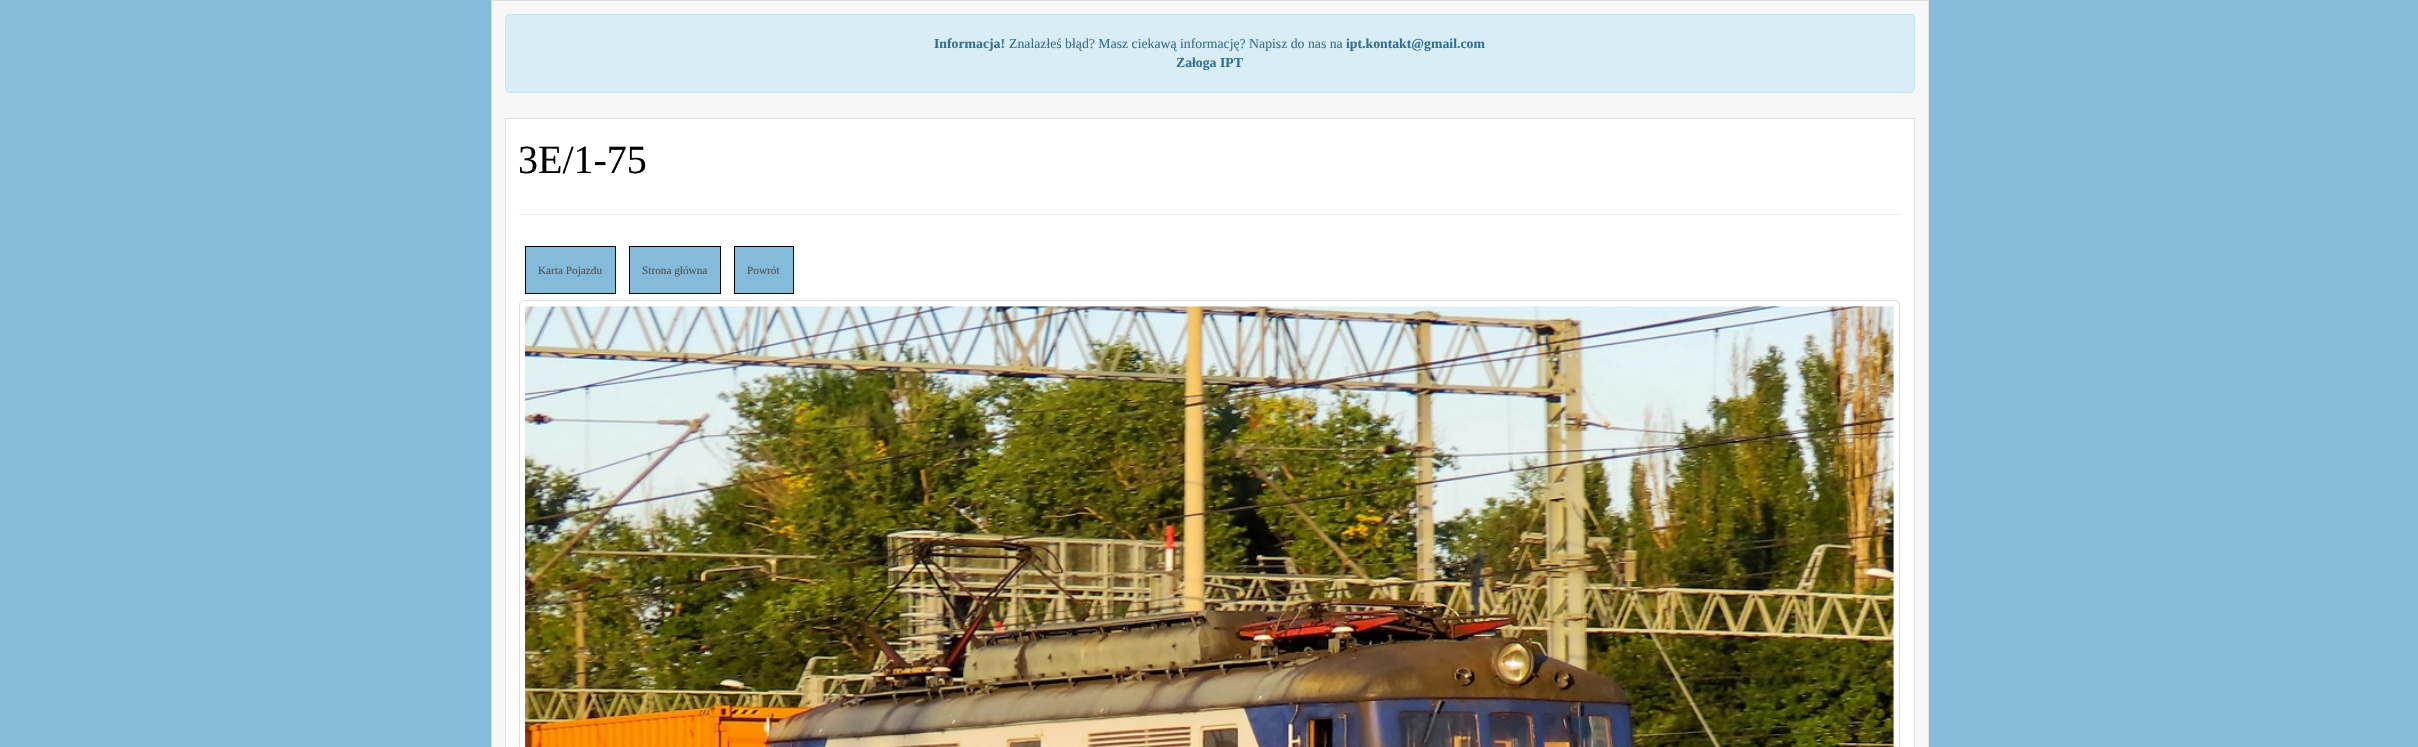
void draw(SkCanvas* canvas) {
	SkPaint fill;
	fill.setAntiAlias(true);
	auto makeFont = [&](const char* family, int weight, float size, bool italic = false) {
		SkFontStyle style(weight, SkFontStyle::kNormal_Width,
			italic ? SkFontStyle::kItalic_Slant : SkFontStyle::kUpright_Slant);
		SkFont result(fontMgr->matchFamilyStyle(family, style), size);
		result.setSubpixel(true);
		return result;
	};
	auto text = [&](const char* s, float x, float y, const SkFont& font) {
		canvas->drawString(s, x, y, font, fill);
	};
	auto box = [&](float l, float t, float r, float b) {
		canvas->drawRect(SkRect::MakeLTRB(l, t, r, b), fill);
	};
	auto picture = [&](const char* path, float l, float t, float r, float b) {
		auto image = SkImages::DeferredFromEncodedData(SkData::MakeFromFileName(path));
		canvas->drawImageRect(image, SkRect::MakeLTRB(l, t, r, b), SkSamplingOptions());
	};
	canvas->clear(0xFF85BBDA);
	fill.setColor(0xFFF7F7F7);
	box(492, 1, 1928, 747);
	fill.setColor(0xFFDFDFDF);
	box(491, 0, 1929, 1);
	box(1928, 0, 1929, 747);
	box(491, 0, 492, 747);
	fill.setColor(0xFFD9EDF7);
	canvas->drawRoundRect(SkRect::MakeLTRB(505.5f, 14.5f, 1914.5f, 92.5f), 4.5f, 4.5f, fill);
	fill.setStyle(SkPaint::kStroke_Style);
	fill.setStrokeWidth(1);
	fill.setColor(0xFFBCE8F1);
	canvas->drawRoundRect(SkRect::MakeLTRB(505.5f, 14.5f, 1914.5f, 92.5f), 4.5f, 4.5f, fill);
	fill.setStyle(SkPaint::kFill_Style);
	fill.setColor(0xFFFFFFFF);
	canvas->drawRect(SkRect::MakeLTRB(505.5f, 118.5f, 1914.5f, 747.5f), fill);
	fill.setStyle(SkPaint::kStroke_Style);
	fill.setColor(0xFFDFDFDF);
	canvas->drawRect(SkRect::MakeLTRB(505.5f, 118.5f, 1914.5f, 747.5f), fill);
	fill.setStyle(SkPaint::kFill_Style);
	fill.setColor(0xFFEEEEEE);
	box(519, 214, 1901, 215);
	fill.setColor(0xFF85BBDA);
	canvas->drawRect(SkRect::MakeLTRB(525.5f, 246.5f, 615.5f, 293.5f), fill);
	fill.setStyle(SkPaint::kStroke_Style);
	fill.setColor(0xFF000000);
	canvas->drawRect(SkRect::MakeLTRB(525.5f, 246.5f, 615.5f, 293.5f), fill);
	fill.setStyle(SkPaint::kFill_Style);
	fill.setColor(0xFF85BBDA);
	canvas->drawRect(SkRect::MakeLTRB(629.5f, 246.5f, 720.5f, 293.5f), fill);
	fill.setStyle(SkPaint::kStroke_Style);
	fill.setColor(0xFF000000);
	canvas->drawRect(SkRect::MakeLTRB(629.5f, 246.5f, 720.5f, 293.5f), fill);
	fill.setStyle(SkPaint::kFill_Style);
	fill.setColor(0xFF85BBDA);
	canvas->drawRect(SkRect::MakeLTRB(734.5f, 246.5f, 793.5f, 293.5f), fill);
	fill.setStyle(SkPaint::kStroke_Style);
	fill.setColor(0xFF000000);
	canvas->drawRect(SkRect::MakeLTRB(734.5f, 246.5f, 793.5f, 293.5f), fill);
	fill.setColor(0xFFDDDDDD);
	canvas->drawRoundRect(SkRect::MakeLTRB(519.5f, 300.5f, 1899.5f, 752.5f), 4.5f, 4.5f, fill);
	picture("image0.png", 525, 306, 1894, 747);
	auto font1 = makeFont("Liberation Serif", 700, 13.75f);
	fill.setStyle(SkPaint::kFill_Style);
	fill.setColor(0xFF31708F);
	text("Informacja!", 934, 48, font1);
	auto font2 = makeFont("Liberation Serif", 400, 13.75f);
	text("Znalazłeś błąd? Masz ciekawą informację? Napisz do nas na", 1009, 48, font2);
	text("ipt.kontakt@gmail.com", 1346, 48, font1);
	text("Załoga IPT", 1176, 67, font1);
	auto font3 = makeFont("Liberation Serif", 400, 40);
	fill.setColor(0xFF000000);
	text("3E/1-75", 518, 173, font3);
	auto font4 = makeFont("Liberation Serif", 400, 11.25f);
	fill.setColor(0xFF4F4F4F);
	text("Karta Pojazdu", 538, 274, font4);
	text("Strona główna", 642, 274, font4);
	text("Powrót", 747, 274, font4);
}
